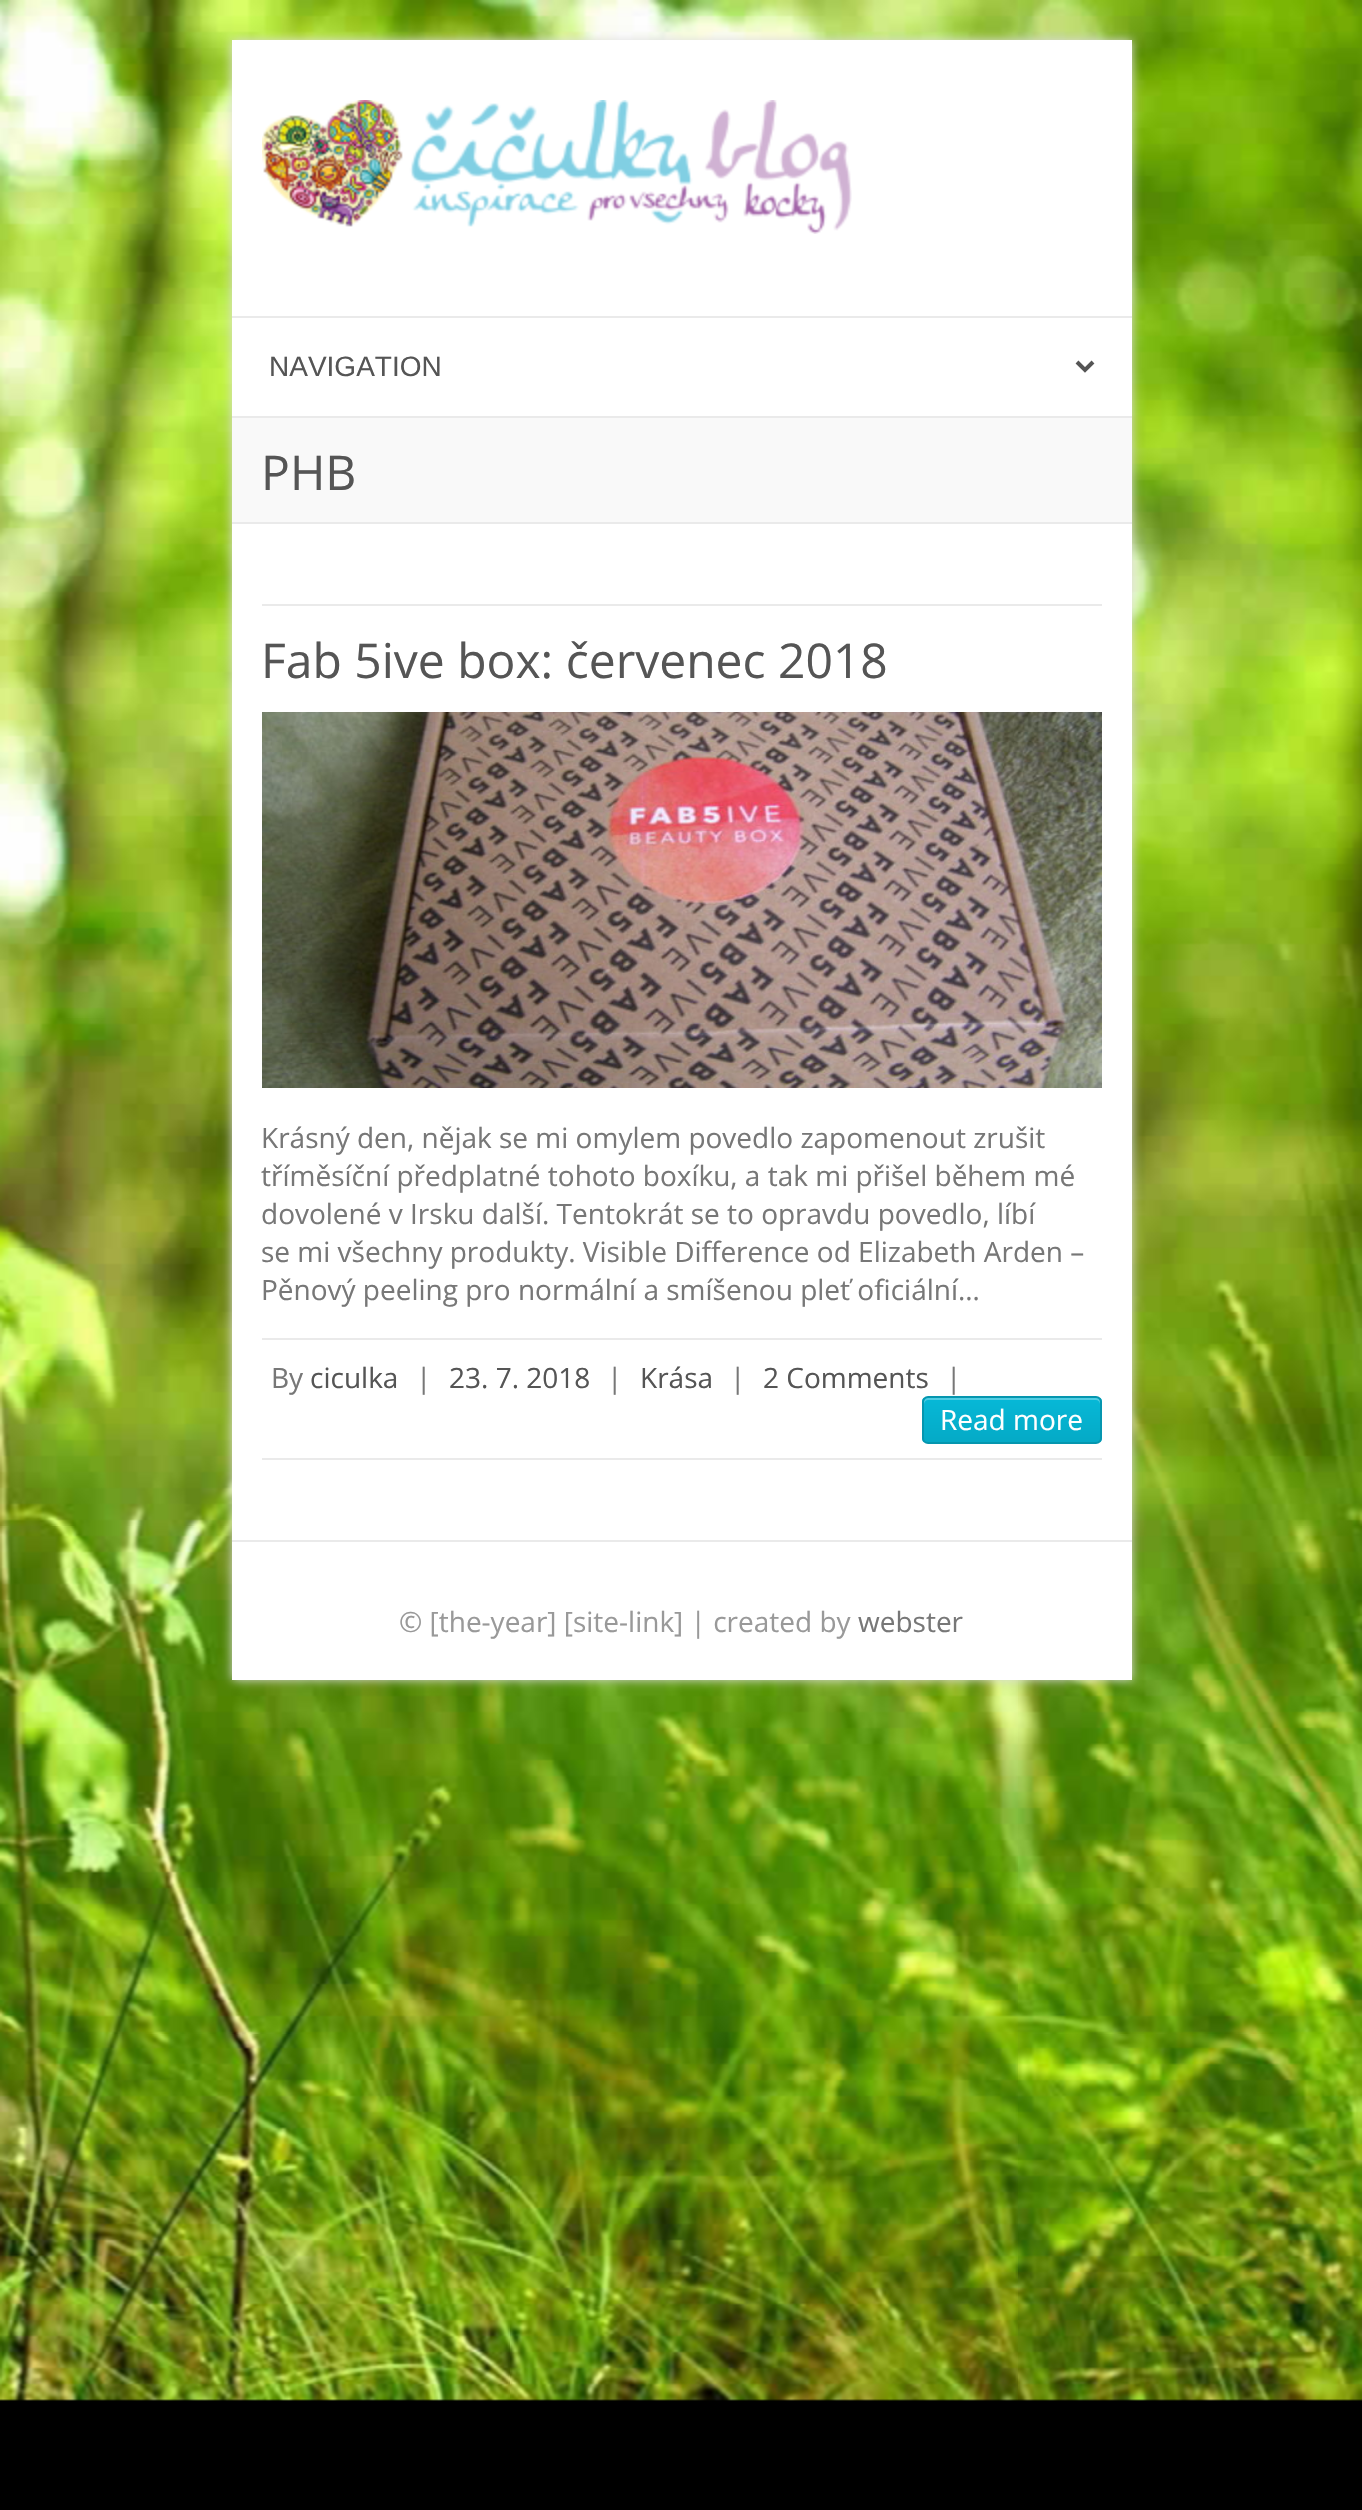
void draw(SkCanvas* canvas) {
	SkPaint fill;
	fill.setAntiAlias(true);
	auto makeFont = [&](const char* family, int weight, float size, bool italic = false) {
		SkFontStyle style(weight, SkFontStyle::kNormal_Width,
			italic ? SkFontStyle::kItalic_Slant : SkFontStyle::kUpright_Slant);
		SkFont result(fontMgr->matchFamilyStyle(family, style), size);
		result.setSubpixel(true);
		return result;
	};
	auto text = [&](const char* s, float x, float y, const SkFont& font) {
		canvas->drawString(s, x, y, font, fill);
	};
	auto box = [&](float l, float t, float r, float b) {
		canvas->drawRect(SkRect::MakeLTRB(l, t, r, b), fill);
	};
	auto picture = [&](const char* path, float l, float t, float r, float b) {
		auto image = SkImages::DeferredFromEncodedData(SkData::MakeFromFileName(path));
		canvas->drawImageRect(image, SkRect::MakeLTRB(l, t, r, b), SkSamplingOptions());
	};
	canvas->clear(0xFF000000);
	picture("image0.png", 0, 0, 1362, 2401);
	fill.setColor(0xFFDDDDDD);
	fill.setMaskFilter(SkMaskFilter::MakeBlur(kNormal_SkBlurStyle, 5));
	canvas->drawRect(SkRect::MakeLTRB(232, 40, 1132, 1680), fill);
	fill.setMaskFilter(nullptr);
	fill.setColor(0xFFFFFFFF);
	box(232, 40, 1132, 1680);
	picture("image1.png", 262, 100, 852, 234);
	fill.setColor(0xFFEAEAEA);
	box(232, 316, 1132, 318);
	box(232, 416, 1132, 418);
	fill.setStyle(SkPaint::kStroke_Style);
	fill.setStrokeWidth(4);
	fill.setColor(0xFF555555);
	canvas->drawPath(SkPathBuilder().moveTo(1077, 362).lineTo(1085, 370).lineTo(1093, 362).detach(), fill);
	fill.setStyle(SkPaint::kFill_Style);
	fill.setColor(0xFFF9F9F9);
	box(232, 418, 1132, 522);
	fill.setColor(0xFFEAEAEA);
	box(232, 522, 1132, 524);
	box(262, 604, 1102, 606);
	picture("image2.png", 262, 712, 1102, 1088);
	box(262, 1338, 1102, 1340);
	box(262, 1458, 1102, 1460);
	canvas->save();
	canvas->clipPath(SkPathBuilder().moveTo(928, 1396).lineTo(1096, 1396).cubicTo(1099.5f, 1396, 1102, 1398.5f, 1102, 1402).lineTo(1102, 1438).cubicTo(1102, 1441.5f, 1099.5f, 1444, 1096, 1444).lineTo(928, 1444).cubicTo(924.5f, 1444, 922, 1441.5f, 922, 1438).lineTo(922, 1402).cubicTo(922, 1398.5f, 924.5f, 1396, 928, 1396).close().detach(), true);
	{
		const SkColor colors[] = {0xFF06B8D7, 0xFF05AAC6};
		const float stops[] = {0, 1};
		const SkPoint ends[] = {{1012, 1398}, {1012, 1442}};
		fill.setShader(SkGradientShader::MakeLinear(ends, colors, stops, 2, SkTileMode::kClamp));
		fill.setAlpha(255);
	}
	box(922, 1398, 1102, 1442);
	canvas->restore();
	fill.setShader(nullptr);
	fill.setColor(0xFF51CDE3);
	canvas->drawPath(SkPathBuilder().moveTo(928, 1400).lineTo(1096, 1400).cubicTo(1098, 1400, 1100, 1402, 1100, 1404).lineTo(1100, 1402).cubicTo(1100, 1400, 1098, 1398, 1096, 1398).lineTo(928, 1398).cubicTo(926, 1398, 924, 1400, 924, 1402).lineTo(924, 1404).cubicTo(924, 1402, 926, 1400, 928, 1400).close().detach(), fill);
	fill.setStyle(SkPaint::kStroke_Style);
	fill.setStrokeWidth(2);
	fill.setColor(0xFF0596AF);
	canvas->drawRoundRect(SkRect::MakeLTRB(923, 1397, 1101, 1443), 5, 5, fill);
	fill.setStyle(SkPaint::kFill_Style);
	fill.setColor(0xFFEAEAEA);
	box(232, 1540, 1132, 1542);
	auto font1 = makeFont("Liberation Sans", 400, 28);
	fill.setColor(0xFF555555);
	text("NAVIGATION", 269, 376, font1);
	auto font2 = makeFont("Open Sans", 400, 48);
	text("PHB", 261, 490, font2);
	text("Fab 5ive box: červenec 2018", 261, 678, font2);
	auto font3 = makeFont("Open Sans", 400, 28);
	fill.setColor(0xFF777777);
	text("Krásný den, nějak se mi omylem povedlo zapomenout zrušit", 261, 1148, font3);
	text("tříměsíční předplatné tohoto boxíku, a tak mi přišel během mé", 261, 1186, font3);
	text("dovolené v Irsku další. Tentokrát se to opravdu povedlo, líbí", 261, 1224, font3);
	text("se mi všechny produkty. Visible Difference od Elizabeth Arden –", 261, 1262, font3);
	text("Pěnový peeling pro normální a smíšenou pleť oficiální…", 261, 1300, font3);
	text("By", 271, 1388, font3);
	fill.setColor(0xFF555555);
	text("ciculka", 310, 1388, font3);
	fill.setColor(0xFF777777);
	text("|", 416, 1388, font3);
	fill.setColor(0xFF555555);
	text("23. 7. 2018", 449, 1388, font3);
	fill.setColor(0xFF777777);
	text("|", 607, 1388, font3);
	fill.setColor(0xFF555555);
	text("Krása", 640, 1388, font3);
	fill.setColor(0xFF777777);
	text("|", 730, 1388, font3);
	fill.setColor(0xFF555555);
	text("2 Comments", 763, 1388, font3);
	fill.setColor(0xFF777777);
	text("|", 946, 1388, font3);
	fill.setColor(0xFFFFFFFF);
	text("Read more", 940, 1430, font3);
	fill.setColor(0xFF999999);
	text("© [the-year] [site-link] | created by", 399, 1632, font3);
	fill.setColor(0xFF777777);
	text("webster", 858, 1632, font3);
}
